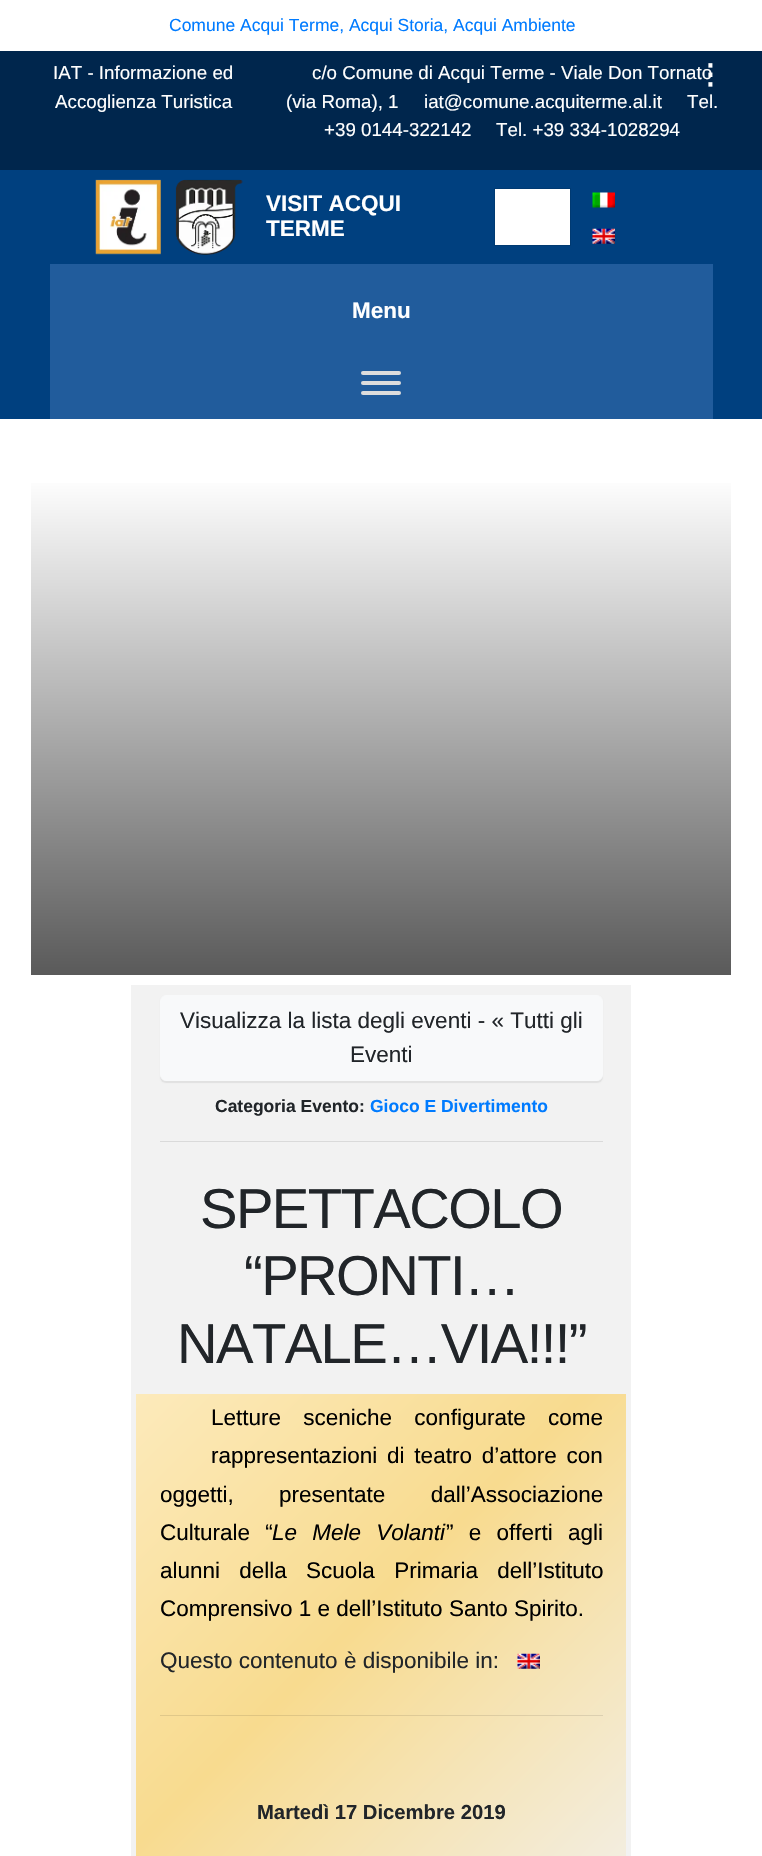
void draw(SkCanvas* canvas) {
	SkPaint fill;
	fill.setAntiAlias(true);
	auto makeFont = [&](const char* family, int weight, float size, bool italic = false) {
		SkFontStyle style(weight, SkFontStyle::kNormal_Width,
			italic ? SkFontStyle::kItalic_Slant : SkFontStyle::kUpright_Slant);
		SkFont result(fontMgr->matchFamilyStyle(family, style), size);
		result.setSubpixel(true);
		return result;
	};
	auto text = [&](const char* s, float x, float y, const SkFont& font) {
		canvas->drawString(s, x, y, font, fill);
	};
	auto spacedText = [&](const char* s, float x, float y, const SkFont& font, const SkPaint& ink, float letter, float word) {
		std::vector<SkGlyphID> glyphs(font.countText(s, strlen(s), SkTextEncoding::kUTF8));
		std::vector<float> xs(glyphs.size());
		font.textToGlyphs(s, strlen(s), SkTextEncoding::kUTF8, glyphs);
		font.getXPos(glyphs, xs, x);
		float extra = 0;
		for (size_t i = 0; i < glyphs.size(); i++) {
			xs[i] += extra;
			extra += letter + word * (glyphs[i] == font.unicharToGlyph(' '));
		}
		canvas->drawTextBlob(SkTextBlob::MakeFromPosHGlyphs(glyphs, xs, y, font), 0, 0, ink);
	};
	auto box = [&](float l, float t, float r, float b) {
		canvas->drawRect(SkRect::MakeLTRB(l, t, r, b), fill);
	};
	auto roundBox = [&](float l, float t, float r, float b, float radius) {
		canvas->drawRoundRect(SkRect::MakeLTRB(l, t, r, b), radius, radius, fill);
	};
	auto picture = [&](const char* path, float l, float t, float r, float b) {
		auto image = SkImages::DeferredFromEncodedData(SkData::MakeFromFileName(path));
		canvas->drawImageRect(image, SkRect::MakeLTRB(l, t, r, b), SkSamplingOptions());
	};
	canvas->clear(0xFFFFFFFF);
	fill.setColor(0xFF00264D);
	box(0, 51, 762, 170);
	fill.setColor(0xFF00407F);
	box(0, 170, 762, 419);
	picture("image0.png", 95, 179, 243, 255);
	fill.setStyle(SkPaint::kStroke_Style);
	fill.setStrokeWidth(1);
	fill.setColor(0xFF003A72);
	canvas->drawRect(SkRect::MakeLTRB(494.5f, 188.5f, 570.5f, 245.5f), fill);
	fill.setStyle(SkPaint::kFill_Style);
	fill.setColor(0xFFFFFFFF);
	box(495, 189, 570, 245);
	picture("image1.png", 592, 192, 615, 208);
	picture("image2.png", 592, 228, 615, 244);
	fill.setColor(0xFF215C9C);
	box(50, 264, 713, 419);
	fill.setColor(0xFFDDDDDD);
	roundBox(361, 371, 401, 375, 2);
	roundBox(361, 381, 401, 385, 2);
	roundBox(361, 391, 401, 395, 2);
	{
		const SkColor colors[] = {0xFFFFFFFF, 0xFF5A5A5A};
		const float stops[] = {0, 1};
		const SkPoint ends[] = {{381, 475}, {381, 975}};
		fill.setShader(SkGradientShader::MakeLinear(ends, colors, stops, 2, SkTileMode::kClamp));
		fill.setAlpha(255);
	}
	box(31, 483, 731, 975);
	fill.setShader(nullptr);
	fill.setColor(0xFFF2F2F2);
	box(131, 985, 631, 1856);
	fill.setColor(0x12000000);
	fill.setMaskFilter(SkMaskFilter::MakeBlur(kNormal_SkBlurStyle, 0.5f));
	canvas->drawRoundRect(SkRect::MakeLTRB(160, 996, 603, 1083), 6, 6, fill);
	fill.setMaskFilter(nullptr);
	fill.setColor(0xFFF8F9FA);
	canvas->drawRoundRect(SkRect::MakeLTRB(160.5f, 995.5f, 602.5f, 1080.5f), 5.5f, 5.5f, fill);
	fill.setStyle(SkPaint::kStroke_Style);
	canvas->drawRoundRect(SkRect::MakeLTRB(160.5f, 995.5f, 602.5f, 1080.5f), 5.5f, 5.5f, fill);
	fill.setStyle(SkPaint::kFill_Style);
	fill.setColor(0xFFDADADA);
	box(160, 1141, 603, 1142);
	{
		const SkColor colors[] = {0xFFFCEABB, 0xFFF8DB8F, 0xFFF2EFE7, 0xFFF1F1F1};
		const float stops[] = {0, 0.4f, 0.89f, 1};
		const SkPoint ends[] = {{99, 1431}, {663, 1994}};
		fill.setShader(SkGradientShader::MakeLinear(ends, colors, stops, 4, SkTileMode::kClamp));
		fill.setAlpha(255);
	}
	box(136, 1394, 626, 1856);
	{
		const SkColor colors[] = {0xFFE3D3A8, 0xFFDFC581, 0xFFDAD7D0, 0xFFD9D9D9};
		const float stops[] = {0, 0.4f, 0.89f, 1};
		const SkPoint ends[] = {{99, 1431}, {663, 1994}};
		fill.setShader(SkGradientShader::MakeLinear(ends, colors, stops, 4, SkTileMode::kClamp));
		fill.setAlpha(255);
	}
	box(160, 1715, 603, 1716);
	picture("image3.png", 517, 1653, 540, 1669);
	auto font1 = makeFont("Liberation Sans", 400, 17.5f);
	fill.setShader(nullptr);
	fill.setColor(0xFF007BFF);
	text("Comune Acqui Terme, Acqui Storia, Acqui Ambiente", 169, 31, font1);
	auto font2 = makeFont("Liberation Sans", 400, 18.75f);
	fill.setColor(0xFFFFFFFF);
	text("IAT - Informazione ed", 53, 79, font2);
	text("Accoglienza Turistica", 55, 108, font2);
	text("c/o Comune di Acqui Terme - Viale Don Tornato", 312, 79, font2);
	auto font3 = makeFont("DejaVu Sans", 700, 28);
	text("⋮", 696, 84, font3);
	text("(via Roma), 1", 286, 108, font2);
	text("iat@comune.acquiterme.al.it", 424, 108, font2);
	text("Tel.", 687, 108, font2);
	text("+39 0144-322142", 324, 136, font2);
	text("Tel. +39 334-1028294", 496, 136, font2);
	auto font4 = makeFont("Liberation Sans", 700, 22.5f);
	text("VISIT ACQUI", 266, 211, font4);
	text("TERME", 266, 236, font4);
	text("Menu", 352, 318, font4);
	auto font5 = makeFont("Liberation Sans", 400, 22.5f);
	fill.setColor(0xFF212529);
	text("Visualizza la lista degli eventi - « Tutti gli", 180, 1028, font5);
	text("Eventi", 350, 1062, font5);
	auto font6 = makeFont("Liberation Sans", 700, 17.5f);
	text("Categoria Evento:", 215, 1112, font6);
	fill.setColor(0xFF007BFF);
	text("Gioco E Divertimento", 370, 1112, font6);
	auto font7 = makeFont("Liberation Sans", 400, 56.25f);
	fill.setColor(0xFF212529);
	spacedText("SPETTACOLO", 200, 1228, font7, fill, -1.6f, 0);
	spacedText("“PRONTI…", 244, 1295, font7, fill, -1.6f, 0);
	spacedText("NATALE…VIA!!!”", 177, 1363, font7, fill, -1.6f, 0);
	fill.setColor(0xFF000000);
	spacedText("Letture sceniche configurate come", 211, 1425, font5, fill, 0, 16);
	spacedText("rappresentazioni di teatro d’attore con", 211, 1463, font5, fill, 0, 3.5f);
	spacedText("oggetti, presentate dall’Associazione", 160, 1502, font5, fill, 0, 39);
	spacedText("Culturale “", 160, 1540, font5, fill, 0, 9);
	auto font8 = makeFont("Liberation Sans", 400, 22.5f, true);
	spacedText("Le Mele Volanti", 272, 1540, font8, fill, 0, 9);
	spacedText("” e offerti agli", 446, 1540, font5, fill, 0, 9);
	spacedText("alunni della Scuola Primaria dell’Istituto", 160, 1578, font5, fill, 0, 13);
	text("Comprensivo 1 e dell’Istituto Santo Spirito.", 160, 1616, font5);
	fill.setColor(0xFF212529);
	text("Questo contenuto è disponibile in:", 160, 1668, font5);
	auto font9 = makeFont("Liberation Sans", 700, 20.25f);
	text("Martedì 17 Dicembre 2019", 257, 1819, font9);
}
